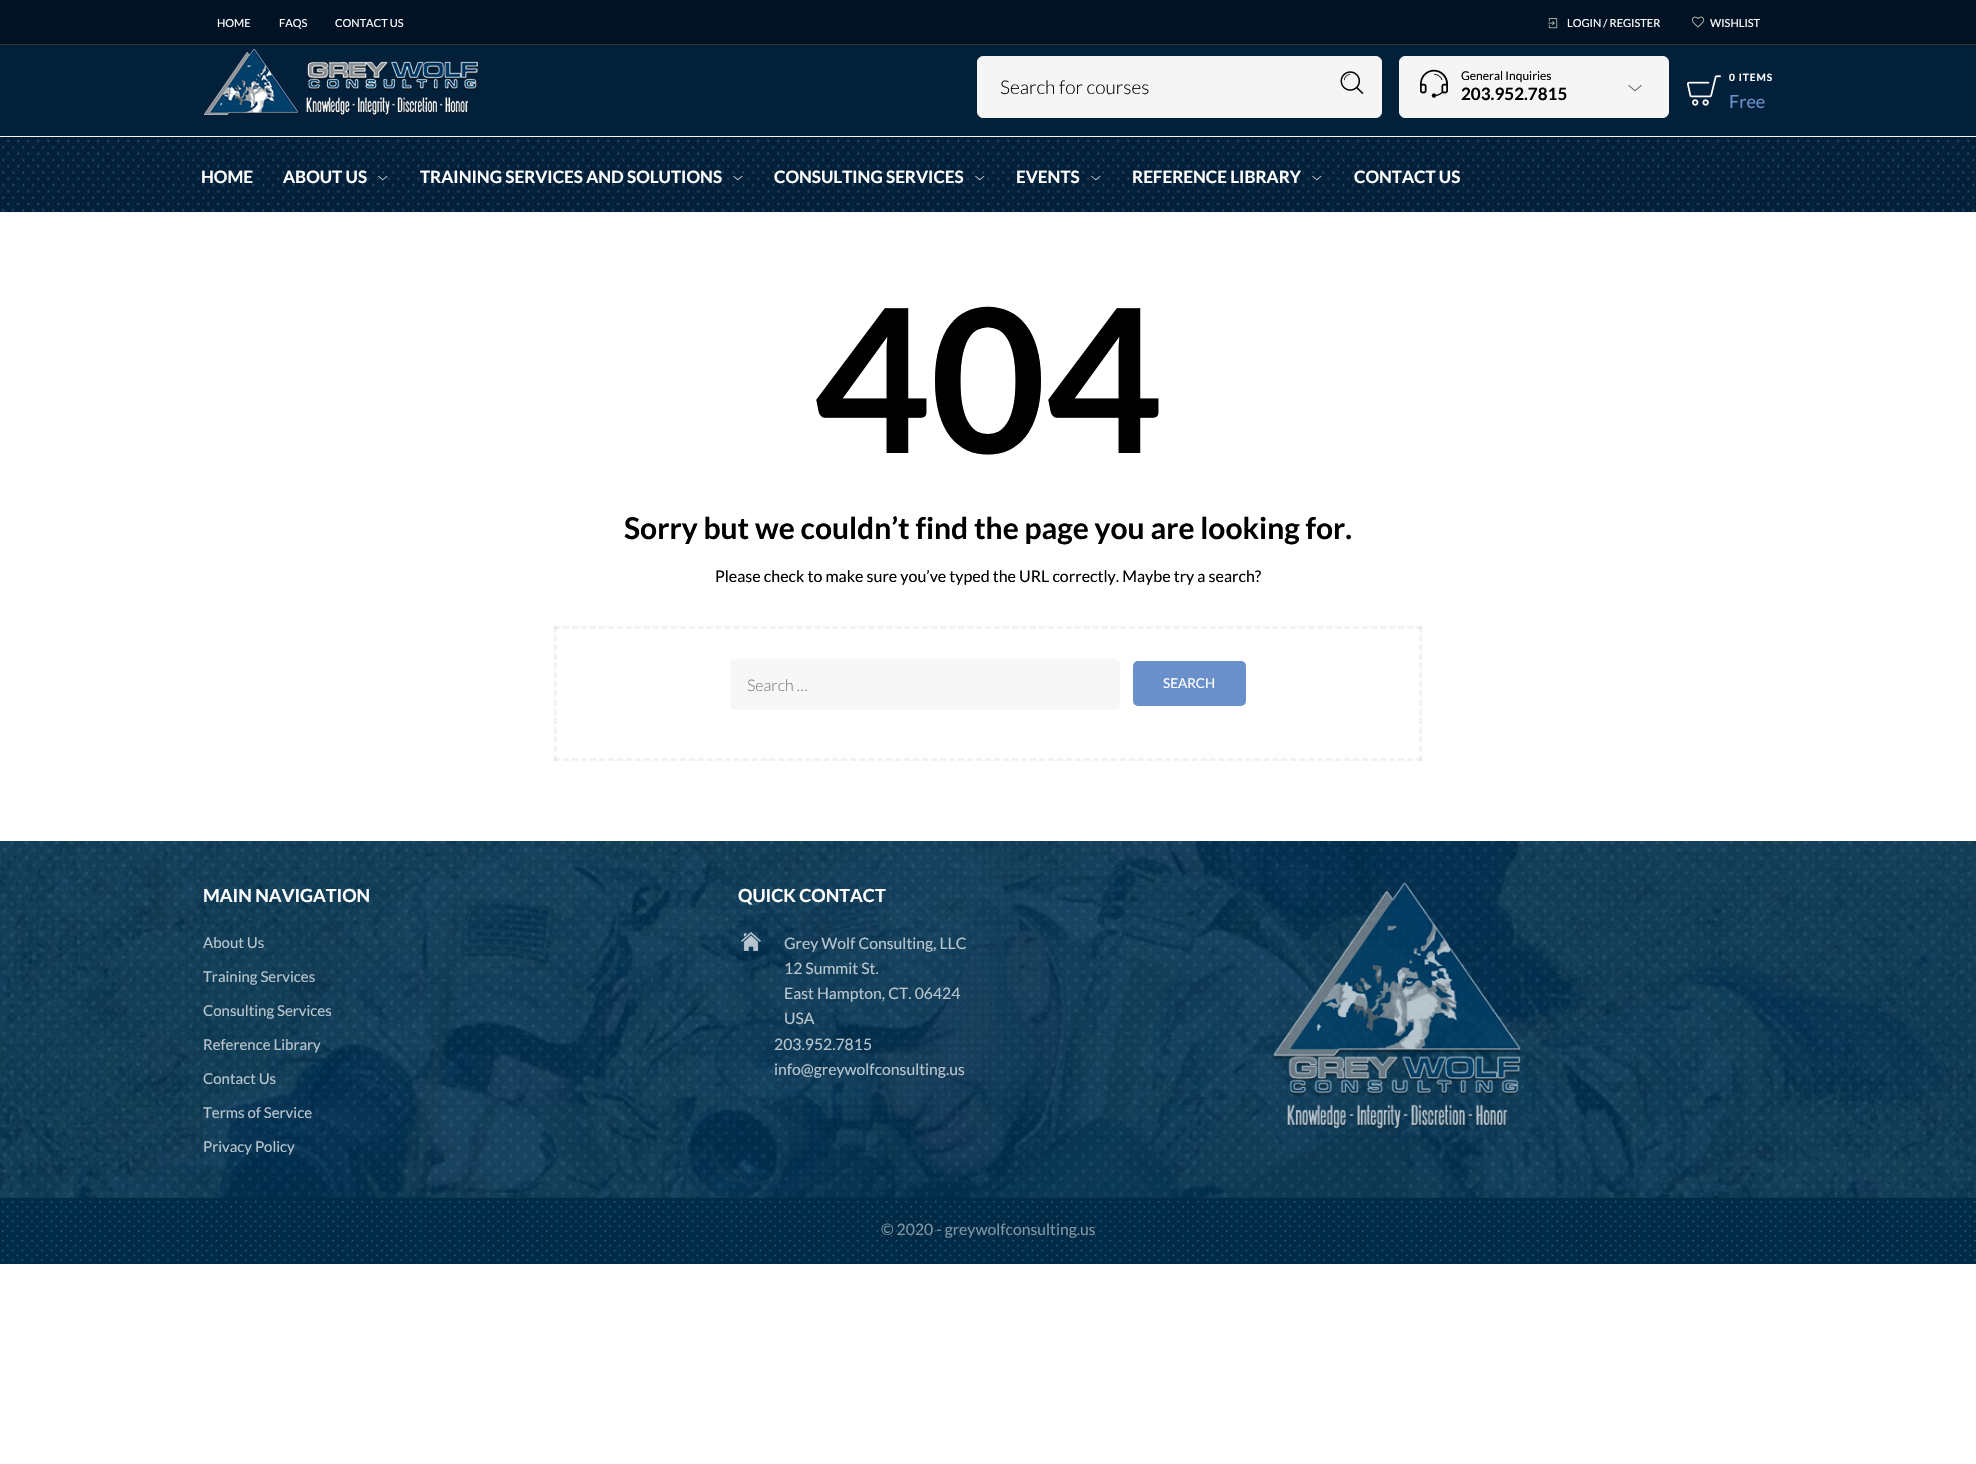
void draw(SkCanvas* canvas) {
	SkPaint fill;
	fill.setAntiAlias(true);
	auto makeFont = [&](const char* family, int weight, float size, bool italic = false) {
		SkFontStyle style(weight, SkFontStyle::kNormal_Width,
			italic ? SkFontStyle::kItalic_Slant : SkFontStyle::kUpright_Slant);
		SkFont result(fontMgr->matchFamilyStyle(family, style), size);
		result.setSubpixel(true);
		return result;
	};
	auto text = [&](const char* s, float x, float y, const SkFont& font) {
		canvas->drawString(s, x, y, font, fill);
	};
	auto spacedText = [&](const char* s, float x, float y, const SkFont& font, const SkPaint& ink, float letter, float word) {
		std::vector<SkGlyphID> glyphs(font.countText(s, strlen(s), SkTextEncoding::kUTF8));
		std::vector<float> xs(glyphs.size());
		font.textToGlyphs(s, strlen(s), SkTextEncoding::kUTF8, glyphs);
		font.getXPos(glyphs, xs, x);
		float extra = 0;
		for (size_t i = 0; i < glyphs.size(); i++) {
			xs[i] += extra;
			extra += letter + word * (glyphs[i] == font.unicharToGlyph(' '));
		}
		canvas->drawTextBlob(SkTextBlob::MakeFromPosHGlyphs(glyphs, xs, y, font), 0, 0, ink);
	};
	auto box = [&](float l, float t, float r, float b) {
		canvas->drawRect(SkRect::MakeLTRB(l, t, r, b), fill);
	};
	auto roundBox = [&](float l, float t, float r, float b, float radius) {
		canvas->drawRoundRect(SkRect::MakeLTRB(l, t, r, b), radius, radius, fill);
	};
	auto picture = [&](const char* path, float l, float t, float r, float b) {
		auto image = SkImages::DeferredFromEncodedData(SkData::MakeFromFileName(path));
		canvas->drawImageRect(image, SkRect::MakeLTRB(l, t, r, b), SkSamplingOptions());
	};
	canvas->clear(0xFFFFFFFF);
	fill.setColor(0xFF03203A);
	box(0, 45, 1976, 136);
	fill.setColor(0xFF001223);
	box(0, 0, 1976, 44);
	fill.setColor(0xFF333333);
	box(0, 44, 1976, 45);
	picture("image0.png", 1548, 18, 1558, 29);
	picture("image1.png", 1691, 16, 1705, 28);
	picture("image2.png", 204, 49, 478, 116);
	fill.setColor(0xFFF5F5F5);
	canvas->drawRoundRect(SkRect::MakeLTRB(977.5f, 56.5f, 1381.5f, 117.5f), 5.5f, 5.5f, fill);
	fill.setStyle(SkPaint::kStroke_Style);
	fill.setStrokeWidth(1);
	canvas->drawRoundRect(SkRect::MakeLTRB(977.5f, 56.5f, 1381.5f, 117.5f), 5.5f, 5.5f, fill);
	picture("image3.png", 1340, 71, 1364, 94);
	fill.setStyle(SkPaint::kFill_Style);
	canvas->drawRoundRect(SkRect::MakeLTRB(1399.5f, 56.5f, 1668.5f, 117.5f), 5.5f, 5.5f, fill);
	fill.setStyle(SkPaint::kStroke_Style);
	canvas->drawRoundRect(SkRect::MakeLTRB(1399.5f, 56.5f, 1668.5f, 117.5f), 5.5f, 5.5f, fill);
	picture("image4.png", 1420, 69, 1448, 98);
	picture("image5.png", 1628, 85, 1642, 92);
	picture("image6.png", 1687, 75, 1721, 106);
	picture("image7.png", 0, 137, 1976, 212);
	fill.setStyle(SkPaint::kFill_Style);
	box(0, 136, 1976, 137);
	box(0, 212, 1976, 213);
	picture("image8.png", 378, 175, 388, 181);
	picture("image9.png", 733, 175, 743, 181);
	picture("image10.png", 975, 175, 985, 181);
	picture("image11.png", 1091, 175, 1101, 181);
	picture("image12.png", 1312, 175, 1322, 181);
	fill.setStyle(SkPaint::kStroke_Style);
	fill.setStrokeWidth(3);
	fill.setColor(0xFFF2F2F2);
	fill.setPathEffect(SkDashPathEffect::Make({{6, 2.98f}}, 0));
	canvas->drawPath(SkPathBuilder().moveTo(554, 627.5f).lineTo(1422, 627.5f).detach(), fill);
	fill.setPathEffect(nullptr);
	fill.setColor(0x0D000000);
	fill.setPathEffect(SkDashPathEffect::Make({{6, 3.21f}}, 0));
	canvas->drawPath(SkPathBuilder().moveTo(1420.5f, 626).lineTo(1420.5f, 761).detach(), fill);
	fill.setPathEffect(nullptr);
	fill.setPathEffect(SkDashPathEffect::Make({{6, 2.98f}}, 0));
	canvas->drawPath(SkPathBuilder().moveTo(554, 759.5f).lineTo(1422, 759.5f).detach(), fill);
	fill.setPathEffect(nullptr);
	fill.setPathEffect(SkDashPathEffect::Make({{6, 3.21f}}, 0));
	canvas->drawPath(SkPathBuilder().moveTo(555.5f, 626).lineTo(555.5f, 761).detach(), fill);
	fill.setPathEffect(nullptr);
	fill.setStyle(SkPaint::kFill_Style);
	fill.setColor(0xFFF7F7F7);
	roundBox(730, 659, 1120, 710, 5);
	fill.setColor(0xFF6990CB);
	roundBox(1133, 661, 1246, 706, 5);
	picture("image13.png", 0, 841, 1976, 1198);
	picture("image14.png", 741, 932, 761, 951);
	picture("image15.png", 1273, 882, 1521, 1131);
	picture("image16.png", 0, 1198, 1976, 1264);
	auto font1 = makeFont("Lato", 400, 11);
	fill.setColor(0xFFFFFFFF);
	text("HOME", 217, 27, font1);
	text("FAQS", 279, 27, font1);
	text("CONTACT US", 335, 27, font1);
	text("LOGIN / REGISTER", 1567, 27, font1);
	text("WISHLIST", 1710, 27, font1);
	auto font2 = makeFont("Lato", 300, 19);
	fill.setColor(0xFF000000);
	text("Search for courses", 1000, 94, font2);
	auto font3 = makeFont("Lato", 400, 12);
	text("General Inquiries", 1461, 80, font3);
	auto font4 = makeFont("Lato", 700, 17);
	text("203.952.7815", 1461, 100, font4);
	auto font5 = makeFont("Lato", 700, 10);
	fill.setColor(0xFFFFFFFF);
	spacedText("0 ITEMS", 1729, 81, font5, fill, 1, 0);
	auto font6 = makeFont("Lato", 400, 18);
	fill.setColor(0xFF6990CB);
	text("Free", 1729, 108, font6);
	fill.setColor(0xFFFFFFFF);
	text("HOME", 201, 183, font4);
	text("ABOUT US", 283, 183, font4);
	text("TRAINING SERVICES AND SOLUTIONS", 420, 183, font4);
	text("CONSULTING SERVICES", 774, 183, font4);
	text("EVENTS", 1016, 183, font4);
	text("REFERENCE LIBRARY", 1132, 183, font4);
	text("CONTACT US", 1354, 183, font4);
	auto font7 = makeFont("Lato", 700, 200);
	fill.setColor(0xFF000000);
	text("404", 814, 453, font7);
	auto font8 = makeFont("Lato", 700, 30);
	text("Sorry but we couldn’t find the page you are looking for.", 624, 539, font8);
	auto font9 = makeFont("Lato", 400, 16);
	text("Please check to make sure you’ve typed the URL correctly. Maybe try a search?", 715, 582, font9);
	auto font10 = makeFont("Lato", 300, 16);
	fill.setColor(0xFF7C7C7C);
	text("Search …", 747, 691, font10);
	auto font11 = makeFont("Lato", 400, 13.5f);
	fill.setColor(0xFFFFFFFF);
	text("SEARCH", 1163, 688, font11);
	auto font12 = makeFont("Lato", 700, 18);
	text("MAIN NAVIGATION", 203, 902, font12);
	auto font13 = makeFont("Lato", 400, 15);
	fill.setColor(0xFFB8C5CD);
	text("About Us", 203, 948, font13);
	text("Training Services", 203, 982, font13);
	text("Consulting Services", 203, 1016, font13);
	text("Reference Library", 203, 1050, font13);
	text("Contact Us", 203, 1084, font13);
	text("Terms of Service", 203, 1118, font13);
	text("Privacy Policy", 203, 1152, font13);
	fill.setColor(0xFFFFFFFF);
	text("QUICK CONTACT", 738, 902, font12);
	auto font14 = makeFont("Lato", 400, 15.75f);
	fill.setColor(0xFFB8C5CD);
	text("Grey Wolf Consulting, LLC", 784, 949, font14);
	text("12 Summit St.", 784, 974, font14);
	text("East Hampton, CT. 06424", 784, 999, font14);
	text("USA", 784, 1024, font14);
	text("203.952.7815", 774, 1050, font14);
	text("info@greywolfconsulting.us", 774, 1075, font14);
	fill.setColor(0xFF8196A3);
	text("© 2020 - greywolfconsulting.us", 881, 1235, font14);
}
